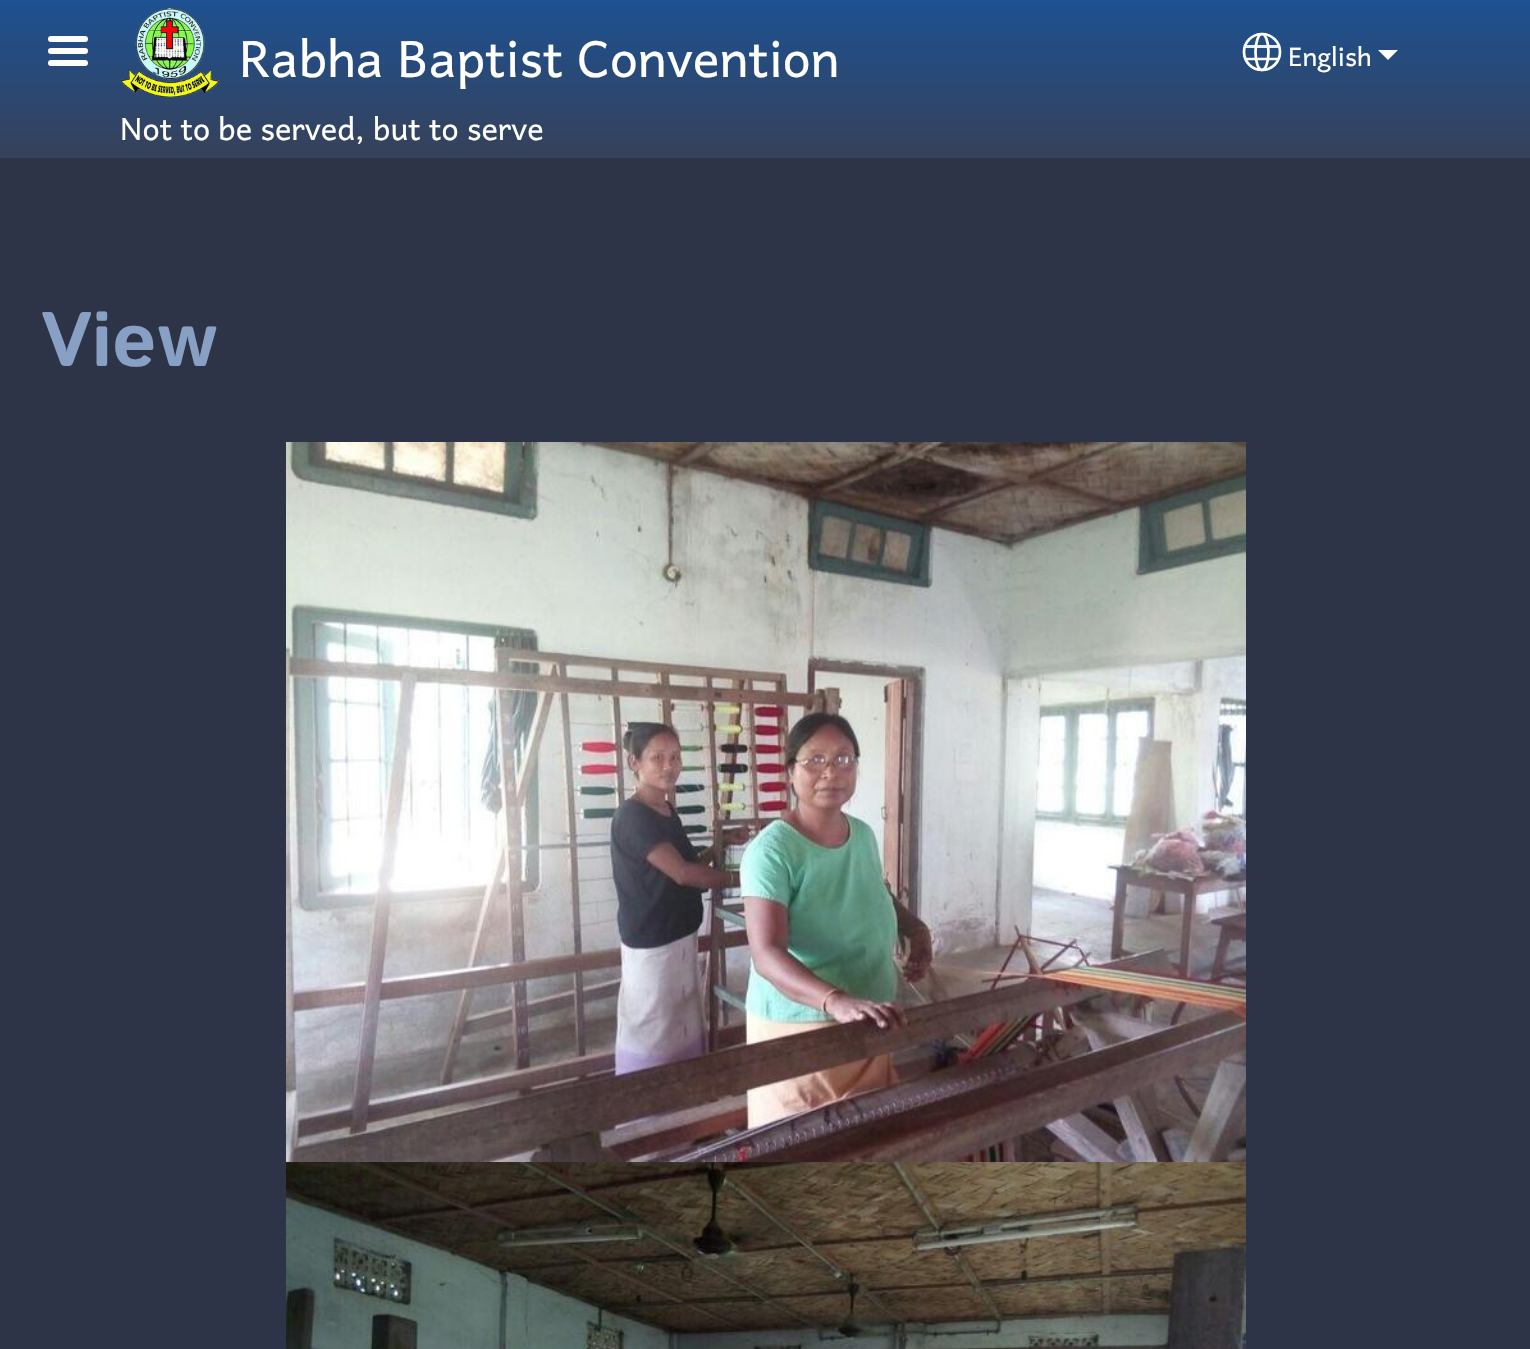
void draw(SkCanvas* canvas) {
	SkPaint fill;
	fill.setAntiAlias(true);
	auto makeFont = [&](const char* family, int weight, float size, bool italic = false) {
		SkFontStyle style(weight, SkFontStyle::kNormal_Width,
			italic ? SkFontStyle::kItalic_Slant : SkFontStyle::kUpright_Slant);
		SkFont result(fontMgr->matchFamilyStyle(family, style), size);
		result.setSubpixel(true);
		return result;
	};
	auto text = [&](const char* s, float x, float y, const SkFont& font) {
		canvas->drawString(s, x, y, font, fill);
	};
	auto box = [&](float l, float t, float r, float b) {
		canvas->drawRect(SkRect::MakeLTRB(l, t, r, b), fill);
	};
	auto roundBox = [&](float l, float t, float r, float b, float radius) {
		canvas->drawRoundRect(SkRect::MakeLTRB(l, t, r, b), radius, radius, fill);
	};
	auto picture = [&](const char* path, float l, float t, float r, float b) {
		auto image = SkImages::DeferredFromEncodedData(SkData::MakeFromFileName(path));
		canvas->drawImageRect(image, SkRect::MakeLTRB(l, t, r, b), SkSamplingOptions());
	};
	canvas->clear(0xFF2D3448);
	{
		const SkColor colors[] = {0xFF1D5192, 0xFF364159};
		const float stops[] = {0, 1};
		const SkPoint ends[] = {{765, 0}, {765, 158}};
		fill.setShader(SkGradientShader::MakeLinear(ends, colors, stops, 2, SkTileMode::kClamp));
		fill.setAlpha(255);
	}
	box(0, 0, 1530, 158);
	fill.setShader(nullptr);
	fill.setColor(0xFFFFFFFE);
	roundBox(48, 36, 88, 42, 3);
	roundBox(48, 48, 88, 54, 3);
	roundBox(48, 60, 88, 66, 3);
	picture("image0.png", 120, 8, 220, 98);
	fill.setStyle(SkPaint::kStroke_Style);
	fill.setStrokeWidth(2.7f);
	canvas->drawCircle(1262, 52, 18, fill);
	canvas->drawOval(SkRect::MakeLTRB(1255.5f, 34, 1268.5f, 70), fill);
	fill.setStyle(SkPaint::kFill_Style);
	fill.setColor(0xE6FFFFFE);
	box(1245, 45, 1279, 48);
	fill.setStyle(SkPaint::kStroke_Style);
	fill.setColor(0xFFFFFFFE);
	canvas->drawPath(SkPathBuilder().moveTo(1244.5f, 59).lineTo(1279, 59).detach(), fill);
	fill.setStyle(SkPaint::kFill_Style);
	canvas->drawPath(SkPathBuilder().moveTo(1378, 50).lineTo(1398, 50).lineTo(1388, 60).close().detach(), fill);
	picture("image1.png", 286, 442, 1246, 1162);
	picture("image2.png", 286, 1162, 1246, 1349);
	auto font1 = makeFont("Kanchenjunga", 400, 50);
	text("Rabha Baptist Convention", 239, 77, font1);
	auto font2 = makeFont("Kanchenjunga", 400, 30.75f);
	text("Not to be served, but to serve", 120, 140, font2);
	auto font3 = makeFont("Kanchenjunga", 400, 25.5f);
	text("English", 1288, 66, font3);
	auto font4 = makeFont("Istok Web", 700, 77);
	fill.setColor(0xFF88A0C4);
	text("View", 40, 366, font4);
}
